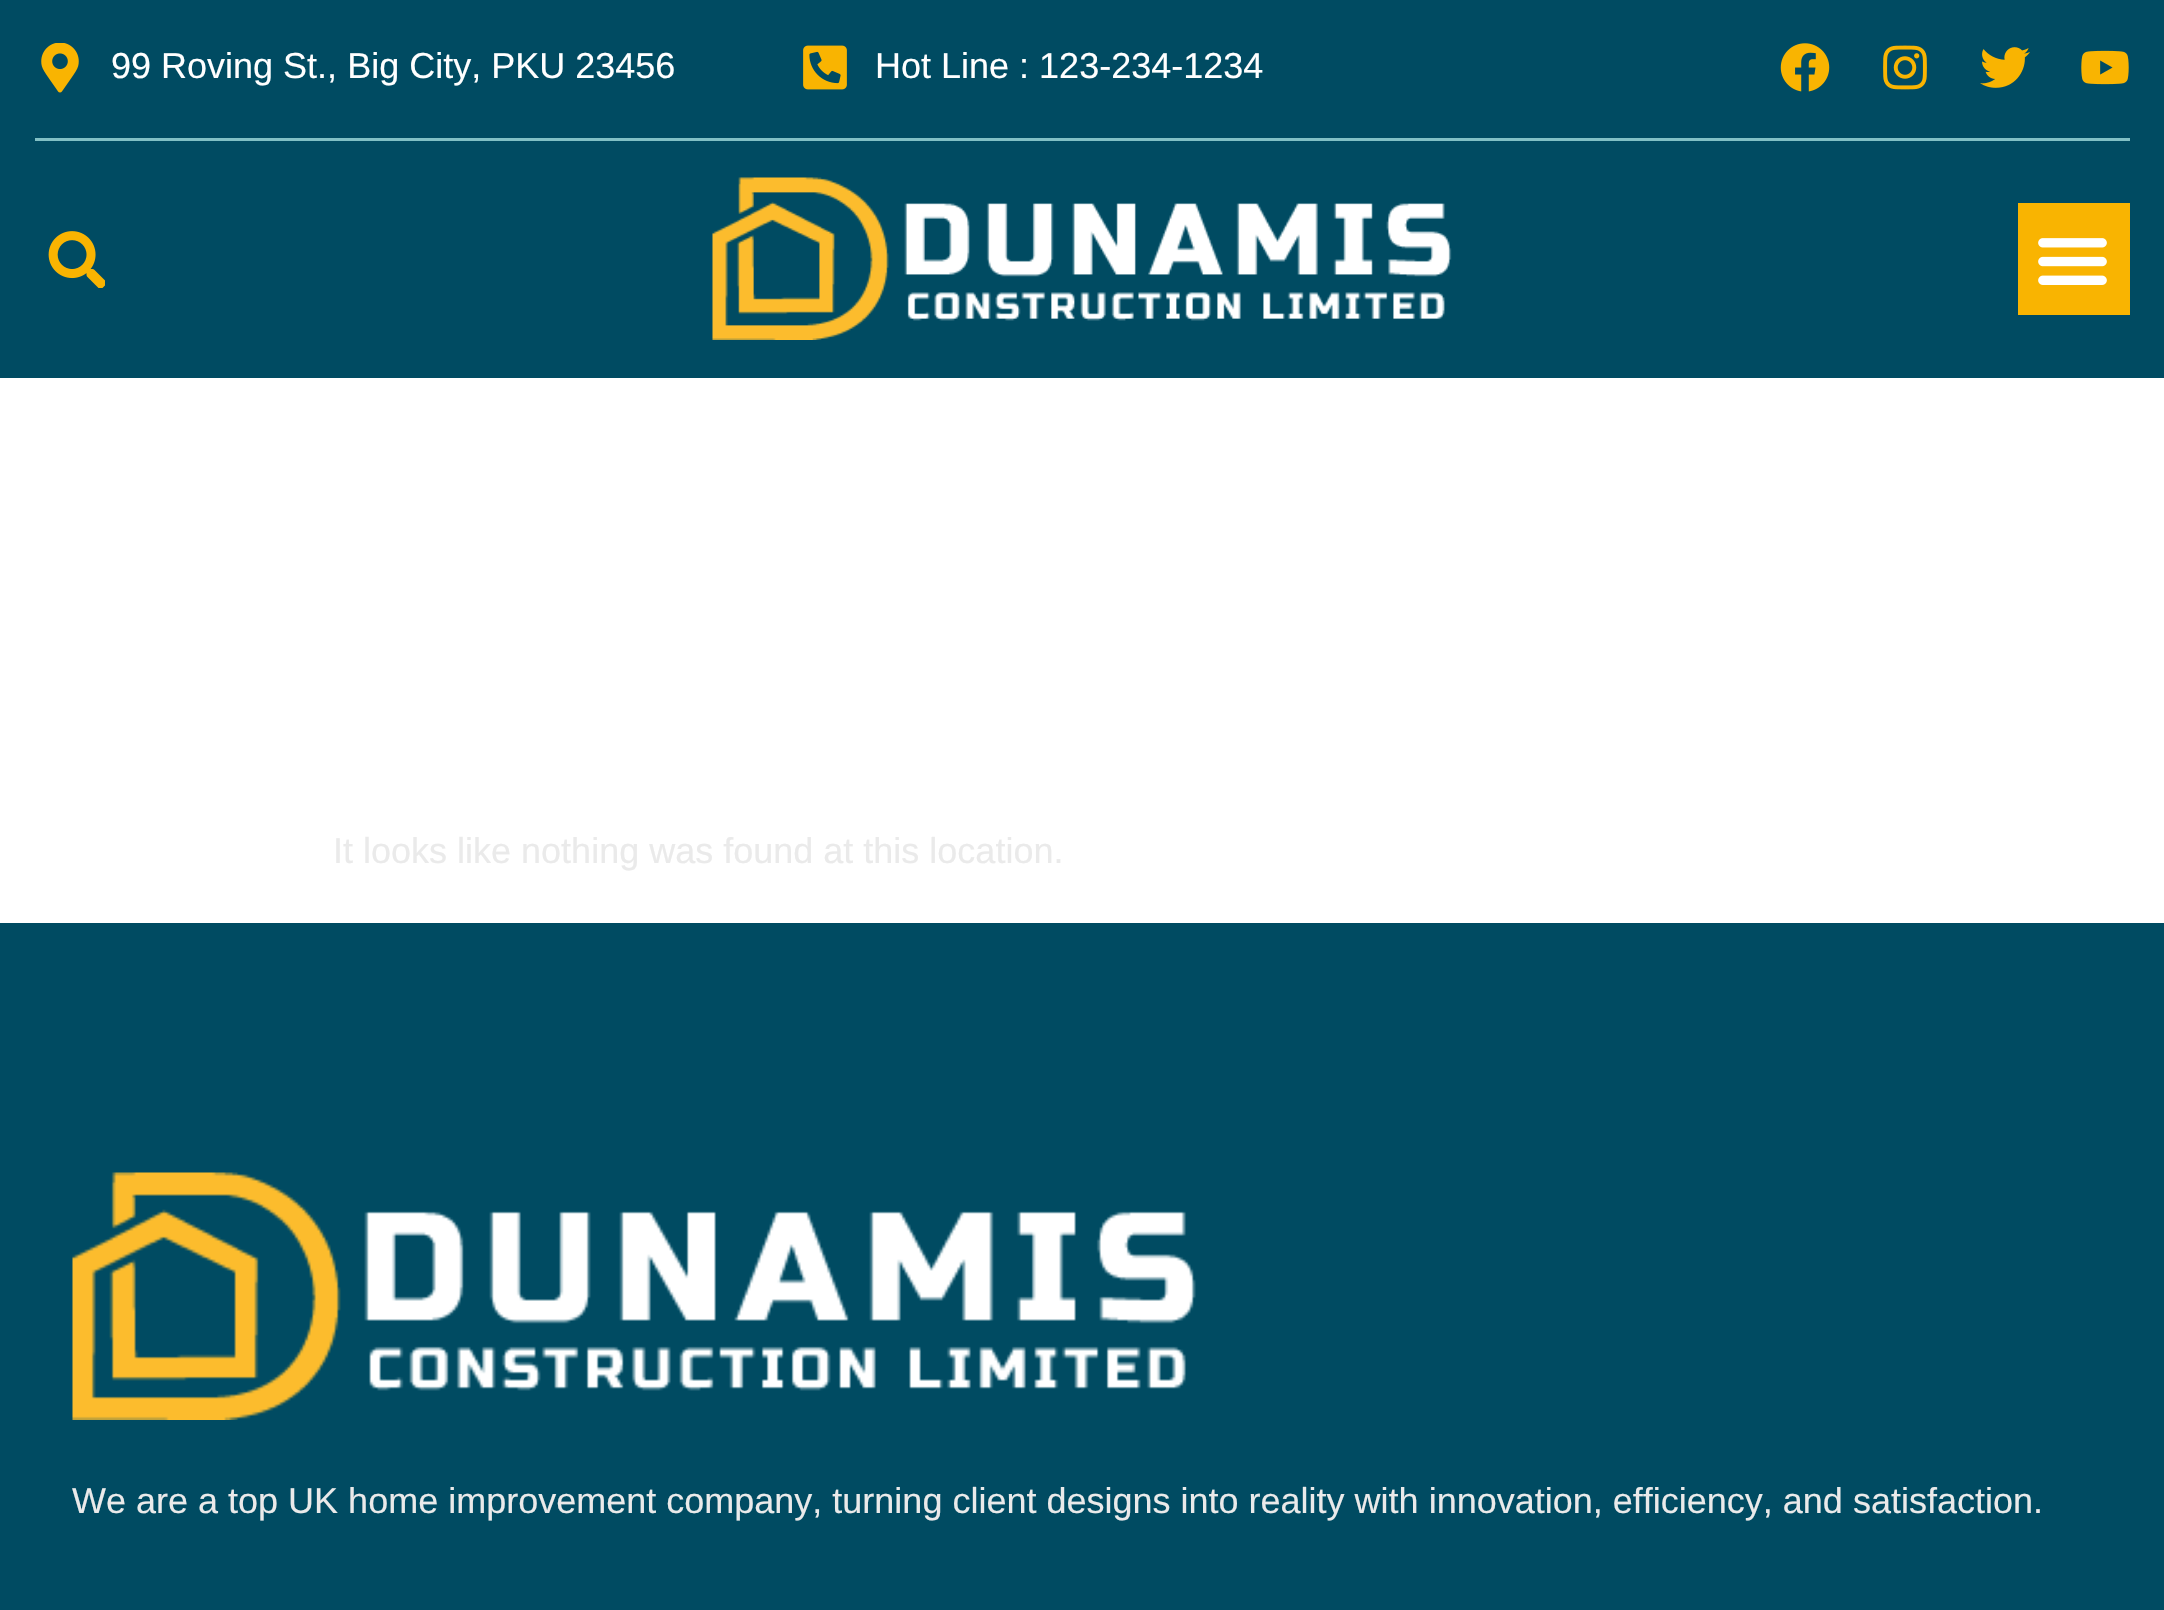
void draw(SkCanvas* canvas) {
	SkPaint fill;
	fill.setAntiAlias(true);
	auto makeFont = [&](const char* family, int weight, float size, bool italic = false) {
		SkFontStyle style(weight, SkFontStyle::kNormal_Width,
			italic ? SkFontStyle::kItalic_Slant : SkFontStyle::kUpright_Slant);
		SkFont result(fontMgr->matchFamilyStyle(family, style), size);
		result.setSubpixel(true);
		return result;
	};
	auto text = [&](const char* s, float x, float y, const SkFont& font) {
		canvas->drawString(s, x, y, font, fill);
	};
	auto box = [&](float l, float t, float r, float b) {
		canvas->drawRect(SkRect::MakeLTRB(l, t, r, b), fill);
	};
	auto picture = [&](const char* path, float l, float t, float r, float b) {
		auto image = SkImages::DeferredFromEncodedData(SkData::MakeFromFileName(path));
		canvas->drawImageRect(image, SkRect::MakeLTRB(l, t, r, b), SkSamplingOptions());
	};
	canvas->clear(0xFFFFFFFF);
	fill.setColor(0xFF004B62);
	box(0, 0, 2164, 378);
	picture("image0.png", 41, 43, 79, 93);
	picture("image1.png", 803, 45, 847, 90);
	picture("image2.png", 1780, 43, 1830, 92);
	picture("image3.png", 1883, 45, 1927, 90);
	picture("image4.png", 1980, 47, 2030, 88);
	picture("image5.png", 2081, 50, 2129, 85);
	fill.setColor(0xFF81C0C5);
	box(35, 138, 2130, 141);
	picture("image6.png", 48, 231, 105, 288);
	picture("image7.png", 712, 177, 1452, 340);
	fill.setColor(0xFFF9B401);
	box(2018, 203, 2130, 315);
	picture("image8.png", 2038, 238, 2107, 285);
	fill.setColor(0xFF004B62);
	box(0, 923, 2164, 1610);
	picture("image9.png", 72, 1172, 1196, 1420);
	auto font1 = makeFont("Liberation Sans", 400, 36);
	fill.setColor(0xFFFFFFFF);
	text("99 Roving St., Big City, PKU 23456", 111, 78, font1);
	text("Hot Line : 123-234-1234", 875, 78, font1);
	fill.setColor(0xFFEAEAEA);
	text("It looks like nothing was found at this location.", 333, 863, font1);
	text("We are a top UK home improvement company, turning client designs into reality with innovation, efficiency, and satisfaction.", 72, 1513, font1);
}
